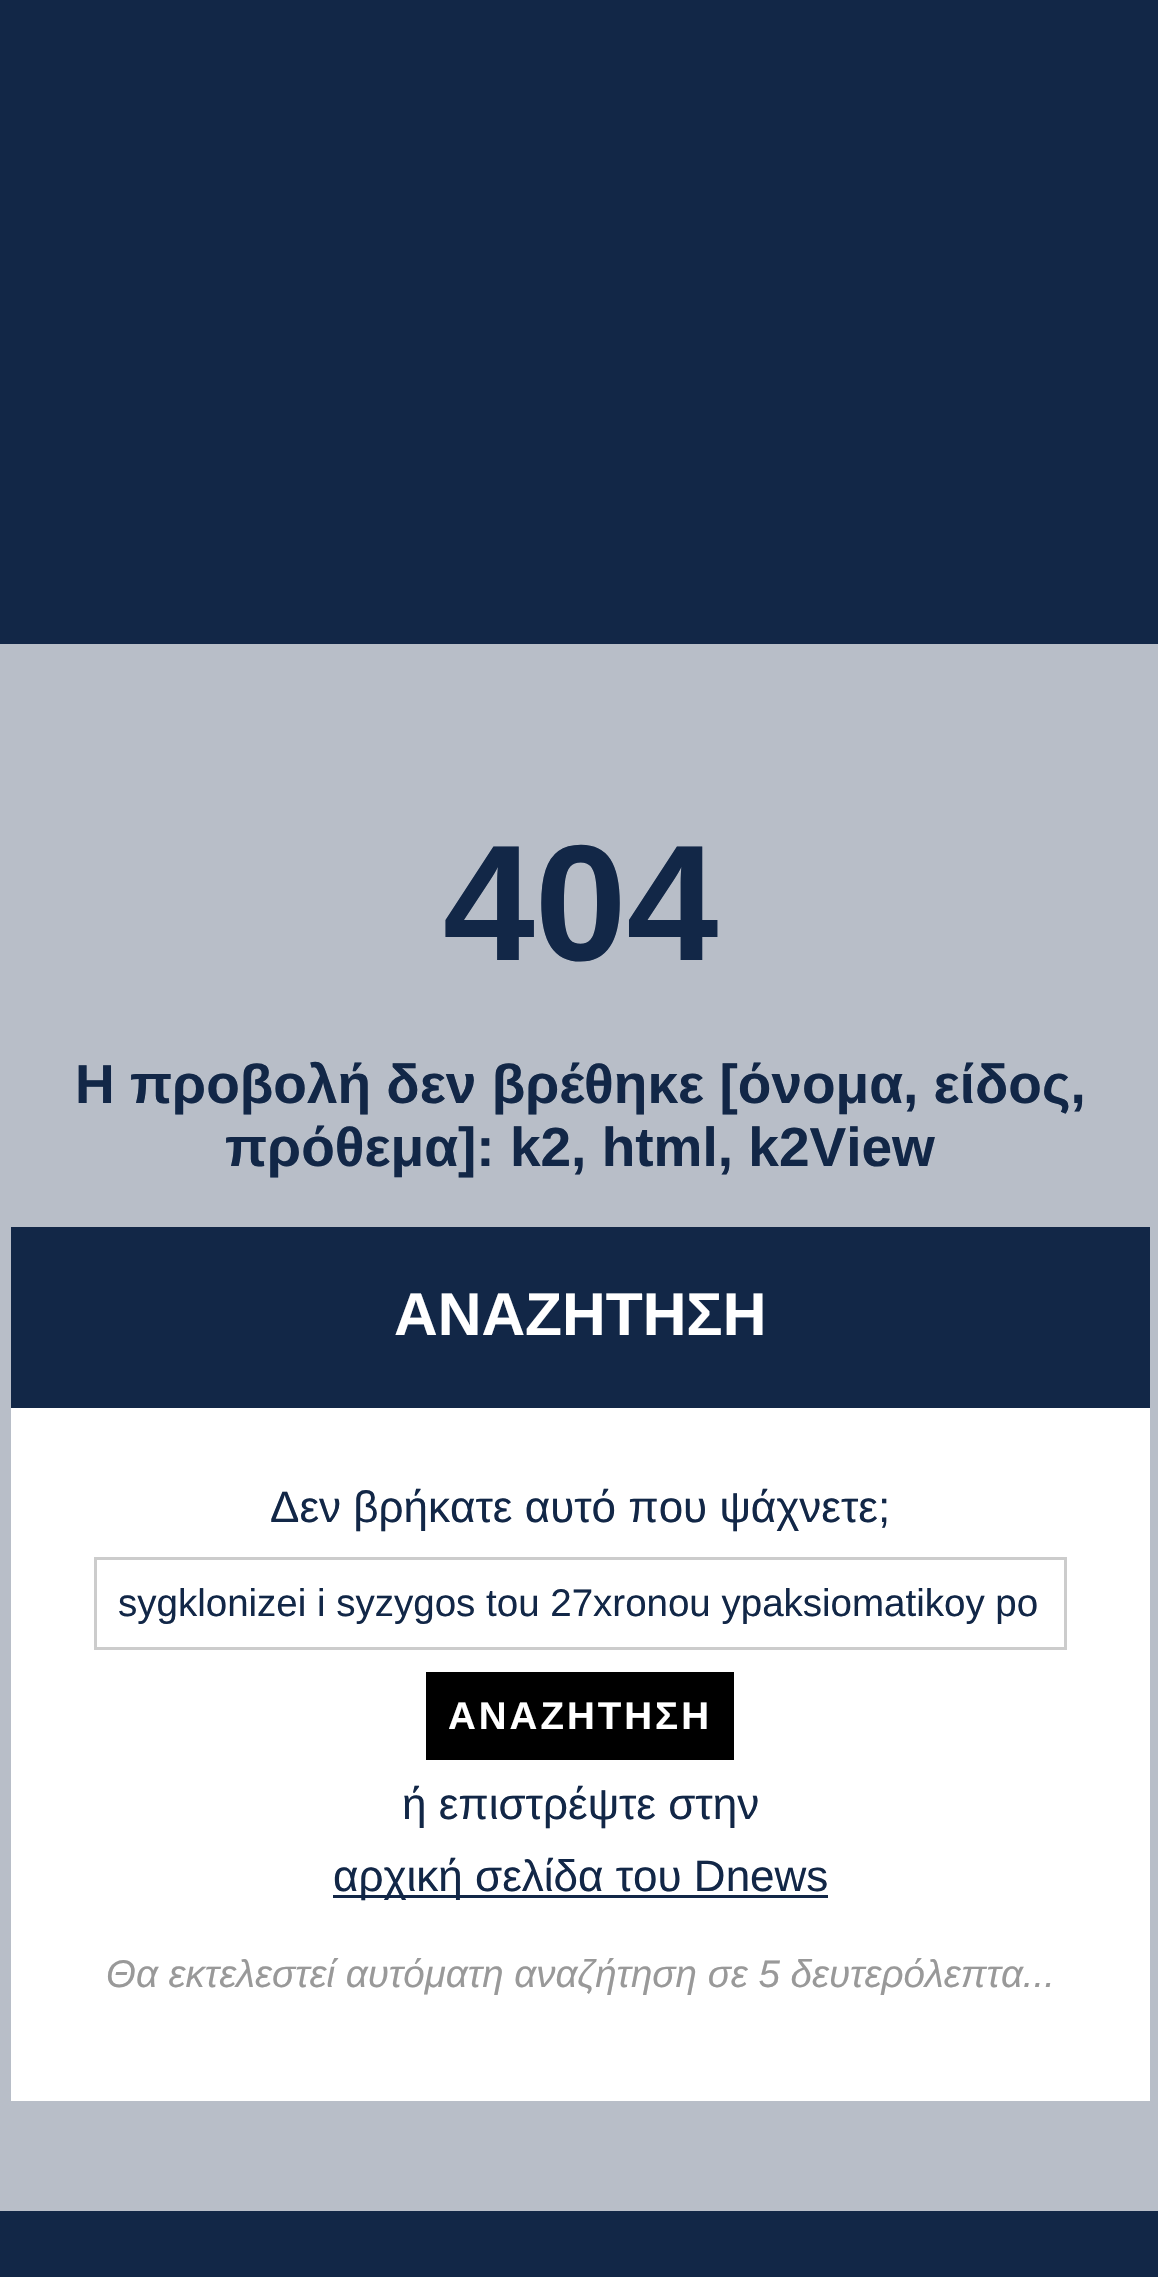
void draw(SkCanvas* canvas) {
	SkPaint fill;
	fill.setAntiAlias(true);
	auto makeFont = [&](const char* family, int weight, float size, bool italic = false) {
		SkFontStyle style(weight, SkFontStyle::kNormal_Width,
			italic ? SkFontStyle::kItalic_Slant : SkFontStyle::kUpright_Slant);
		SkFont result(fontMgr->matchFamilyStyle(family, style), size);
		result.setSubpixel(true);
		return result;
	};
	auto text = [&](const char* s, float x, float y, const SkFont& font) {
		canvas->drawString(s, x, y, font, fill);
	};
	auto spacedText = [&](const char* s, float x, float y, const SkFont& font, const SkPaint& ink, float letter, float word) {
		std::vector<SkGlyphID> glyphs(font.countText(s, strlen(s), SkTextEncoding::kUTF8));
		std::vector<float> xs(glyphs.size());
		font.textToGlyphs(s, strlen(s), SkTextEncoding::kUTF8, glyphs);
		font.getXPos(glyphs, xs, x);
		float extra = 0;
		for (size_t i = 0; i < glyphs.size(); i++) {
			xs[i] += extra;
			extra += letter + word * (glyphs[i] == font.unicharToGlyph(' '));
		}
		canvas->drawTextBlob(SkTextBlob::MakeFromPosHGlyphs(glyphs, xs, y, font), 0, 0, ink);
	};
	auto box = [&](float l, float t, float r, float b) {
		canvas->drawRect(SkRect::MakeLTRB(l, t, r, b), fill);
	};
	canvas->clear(0xFF122747);
	fill.setColor(0xFFB8BEC8);
	box(0, 644, 1158, 2211);
	fill.setColor(0xFFFFFFFF);
	box(11, 1408, 1150, 2101);
	fill.setColor(0xFF122747);
	box(11, 1227, 1150, 1408);
	fill.setStyle(SkPaint::kStroke_Style);
	fill.setStrokeWidth(3);
	fill.setColor(0xFFCCCCCC);
	canvas->drawRect(SkRect::MakeLTRB(95.5f, 1558.5f, 1065.5f, 1648.5f), fill);
	fill.setStyle(SkPaint::kFill_Style);
	fill.setColor(0xFF000000);
	box(426, 1672, 734, 1760);
	fill.setColor(0xFF122747);
	box(333, 1895, 828, 1898);
	auto font1 = makeFont("Liberation Sans", 700, 165);
	text("404", 443, 960, font1);
	auto font2 = makeFont("Liberation Sans", 700, 55);
	text("Η προβολή δεν βρέθηκε [όνομα, είδος,", 75, 1103, font2);
	text("πρόθεμα]: k2, html, k2View", 225, 1166, font2);
	auto font3 = makeFont("Liberation Sans", 700, 60.5f);
	fill.setColor(0xFFFFFFFF);
	text("ΑΝΑΖΗΤΗΣΗ", 394, 1335, font3);
	auto font4 = makeFont("Liberation Sans", 400, 44);
	fill.setColor(0xFF122747);
	text("Δεν βρήκατε αυτό που ψάχνετε;", 270, 1522, font4);
	auto font5 = makeFont("Liberation Sans", 400, 38.5f);
	text("sygklonizei i syzygos tou 27xronou ypaksiomatikoy po", 118, 1616, font5);
	auto font6 = makeFont("Liberation Sans", 700, 38.5f);
	fill.setColor(0xFFFFFFFF);
	spacedText("ΑΝΑΖΗΤΗΣΗ", 448, 1729, font6, fill, 3, 0);
	fill.setColor(0xFF122747);
	text("ή επιστρέψτε στην", 402, 1819, font4);
	text("αρχική σελίδα του Dnews", 333, 1891, font4);
	auto font7 = makeFont("Liberation Sans", 400, 38.5f, true);
	fill.setColor(0xFF999999);
	text("Θα εκτελεστεί αυτόματη αναζήτηση σε 5 δευτερόλεπτα...", 106, 1987, font7);
}
